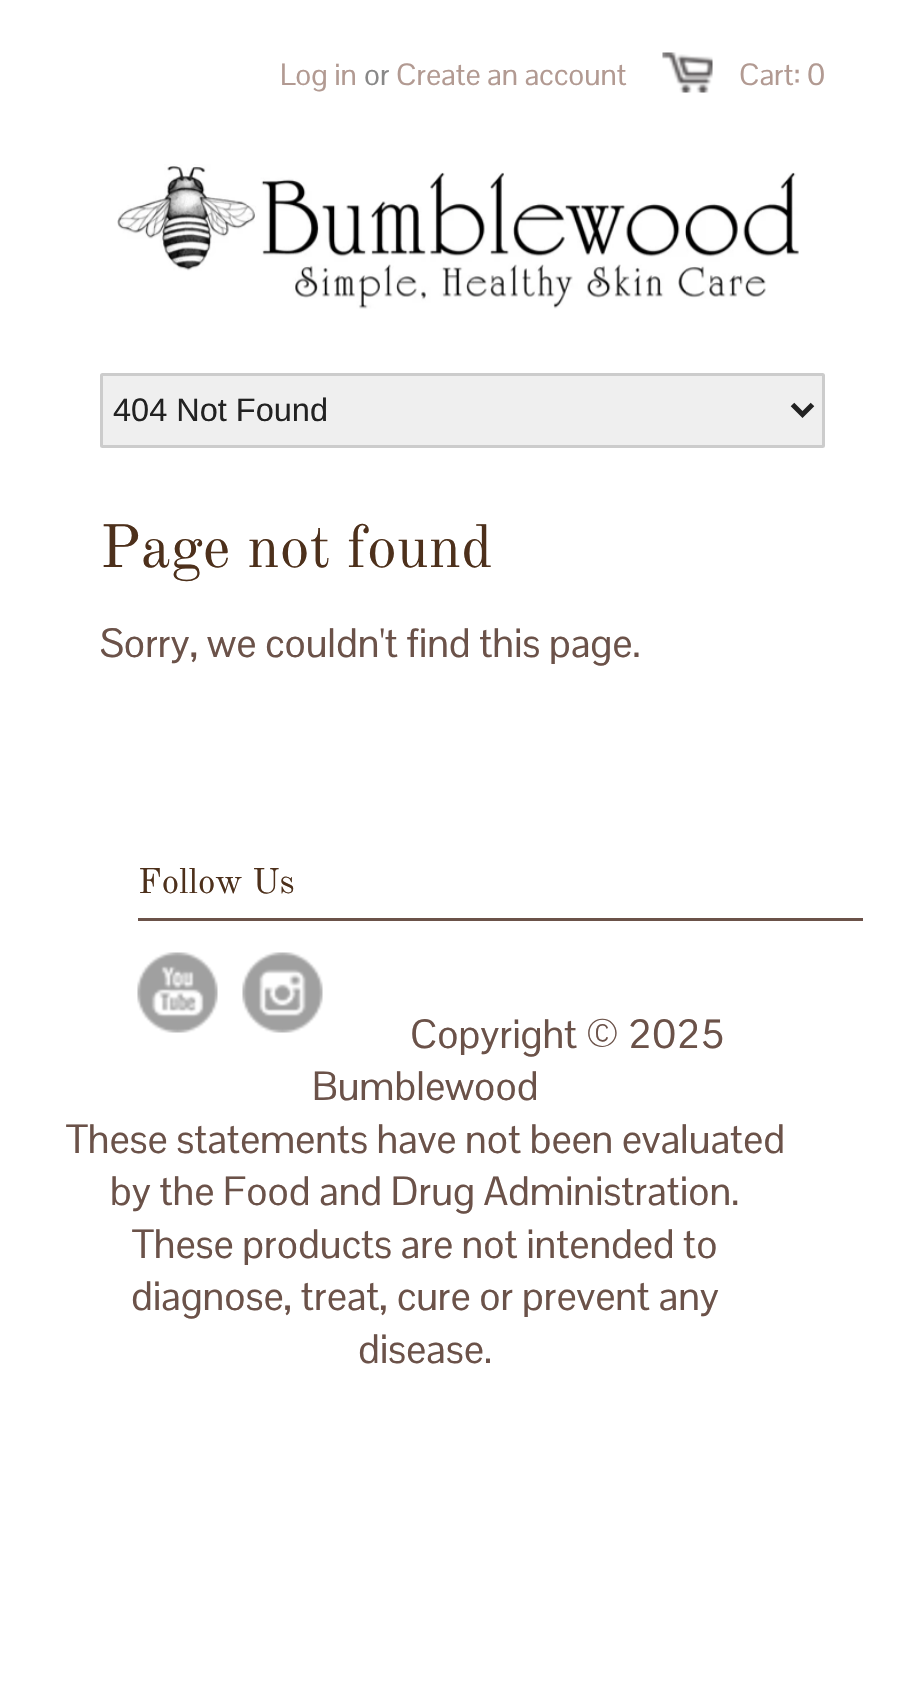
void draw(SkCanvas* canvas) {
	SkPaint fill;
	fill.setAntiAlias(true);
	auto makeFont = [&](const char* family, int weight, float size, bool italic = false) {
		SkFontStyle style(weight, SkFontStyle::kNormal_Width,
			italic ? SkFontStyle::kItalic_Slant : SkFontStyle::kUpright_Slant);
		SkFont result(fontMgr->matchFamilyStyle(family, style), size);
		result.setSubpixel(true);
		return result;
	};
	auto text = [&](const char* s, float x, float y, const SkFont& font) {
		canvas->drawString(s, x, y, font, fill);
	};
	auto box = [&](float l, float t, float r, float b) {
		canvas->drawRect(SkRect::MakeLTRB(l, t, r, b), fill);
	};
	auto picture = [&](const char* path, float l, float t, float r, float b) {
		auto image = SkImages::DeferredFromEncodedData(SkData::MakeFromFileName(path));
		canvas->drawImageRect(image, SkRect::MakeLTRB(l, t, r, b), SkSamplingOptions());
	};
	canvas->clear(0xFFFFFFFF);
	picture("image0.png", 662, 52, 713, 93);
	picture("image1.png", 117, 164, 799, 309);
	fill.setColor(0xFFEFEFEF);
	canvas->drawRoundRect(SkRect::MakeLTRB(101.5f, 374.5f, 823.5f, 446.5f), 1, 1, fill);
	fill.setStyle(SkPaint::kStroke_Style);
	fill.setStrokeWidth(3);
	fill.setColor(0xFFCCCCCC);
	canvas->drawRoundRect(SkRect::MakeLTRB(101.5f, 374.5f, 823.5f, 446.5f), 1, 1, fill);
	fill.setStrokeWidth(5);
	fill.setColor(0xFF222222);
	canvas->drawPath(SkPathBuilder().moveTo(792.5f, 404.5f).lineTo(802.5f, 414.5f).lineTo(812.5f, 404.5f).detach(), fill);
	fill.setStyle(SkPaint::kFill_Style);
	fill.setColor(0xFF6B5249);
	box(138, 918, 863, 921);
	picture("image2.png", 137, 952, 218, 1033);
	picture("image3.png", 242, 952, 323, 1033);
	auto font1 = makeFont("Pontano Sans", 400, 30);
	fill.setColor(0xFFB29A92);
	text("Log in", 280, 85, font1);
	fill.setColor(0xFF888888);
	text("or", 364, 85, font1);
	fill.setColor(0xFFB29A92);
	text("Create an account", 396, 85, font1);
	text("Cart: 0", 739, 85, font1);
	auto font2 = makeFont("Liberation Sans", 400, 32.5f);
	fill.setColor(0xFF222222);
	text("404 Not Found", 113, 421, font2);
	auto font3 = makeFont("Old Standard TT", 400, 60);
	fill.setColor(0xFF4D301B);
	text("Page not found", 100, 567, font3);
	auto font4 = makeFont("Pontano Sans", 400, 40);
	fill.setColor(0xFF6B5249);
	text("Sorry, we couldn't find this page.", 100, 657, font4);
	auto font5 = makeFont("Old Standard TT", 400, 35);
	fill.setColor(0xFF4D301B);
	text("Follow Us", 138, 893, font5);
	fill.setColor(0xFF6B5249);
	text("Copyright © 2025", 410, 1048, font4);
	text("Bumblewood", 312, 1100, font4);
	text("These statements have not been evaluated", 66, 1153, font4);
	text("by the Food and Drug Administration.", 110, 1205, font4);
	text("These products are not intended to", 132, 1258, font4);
	text("diagnose, treat, cure or prevent any", 131, 1310, font4);
	text("disease.", 358, 1363, font4);
}
